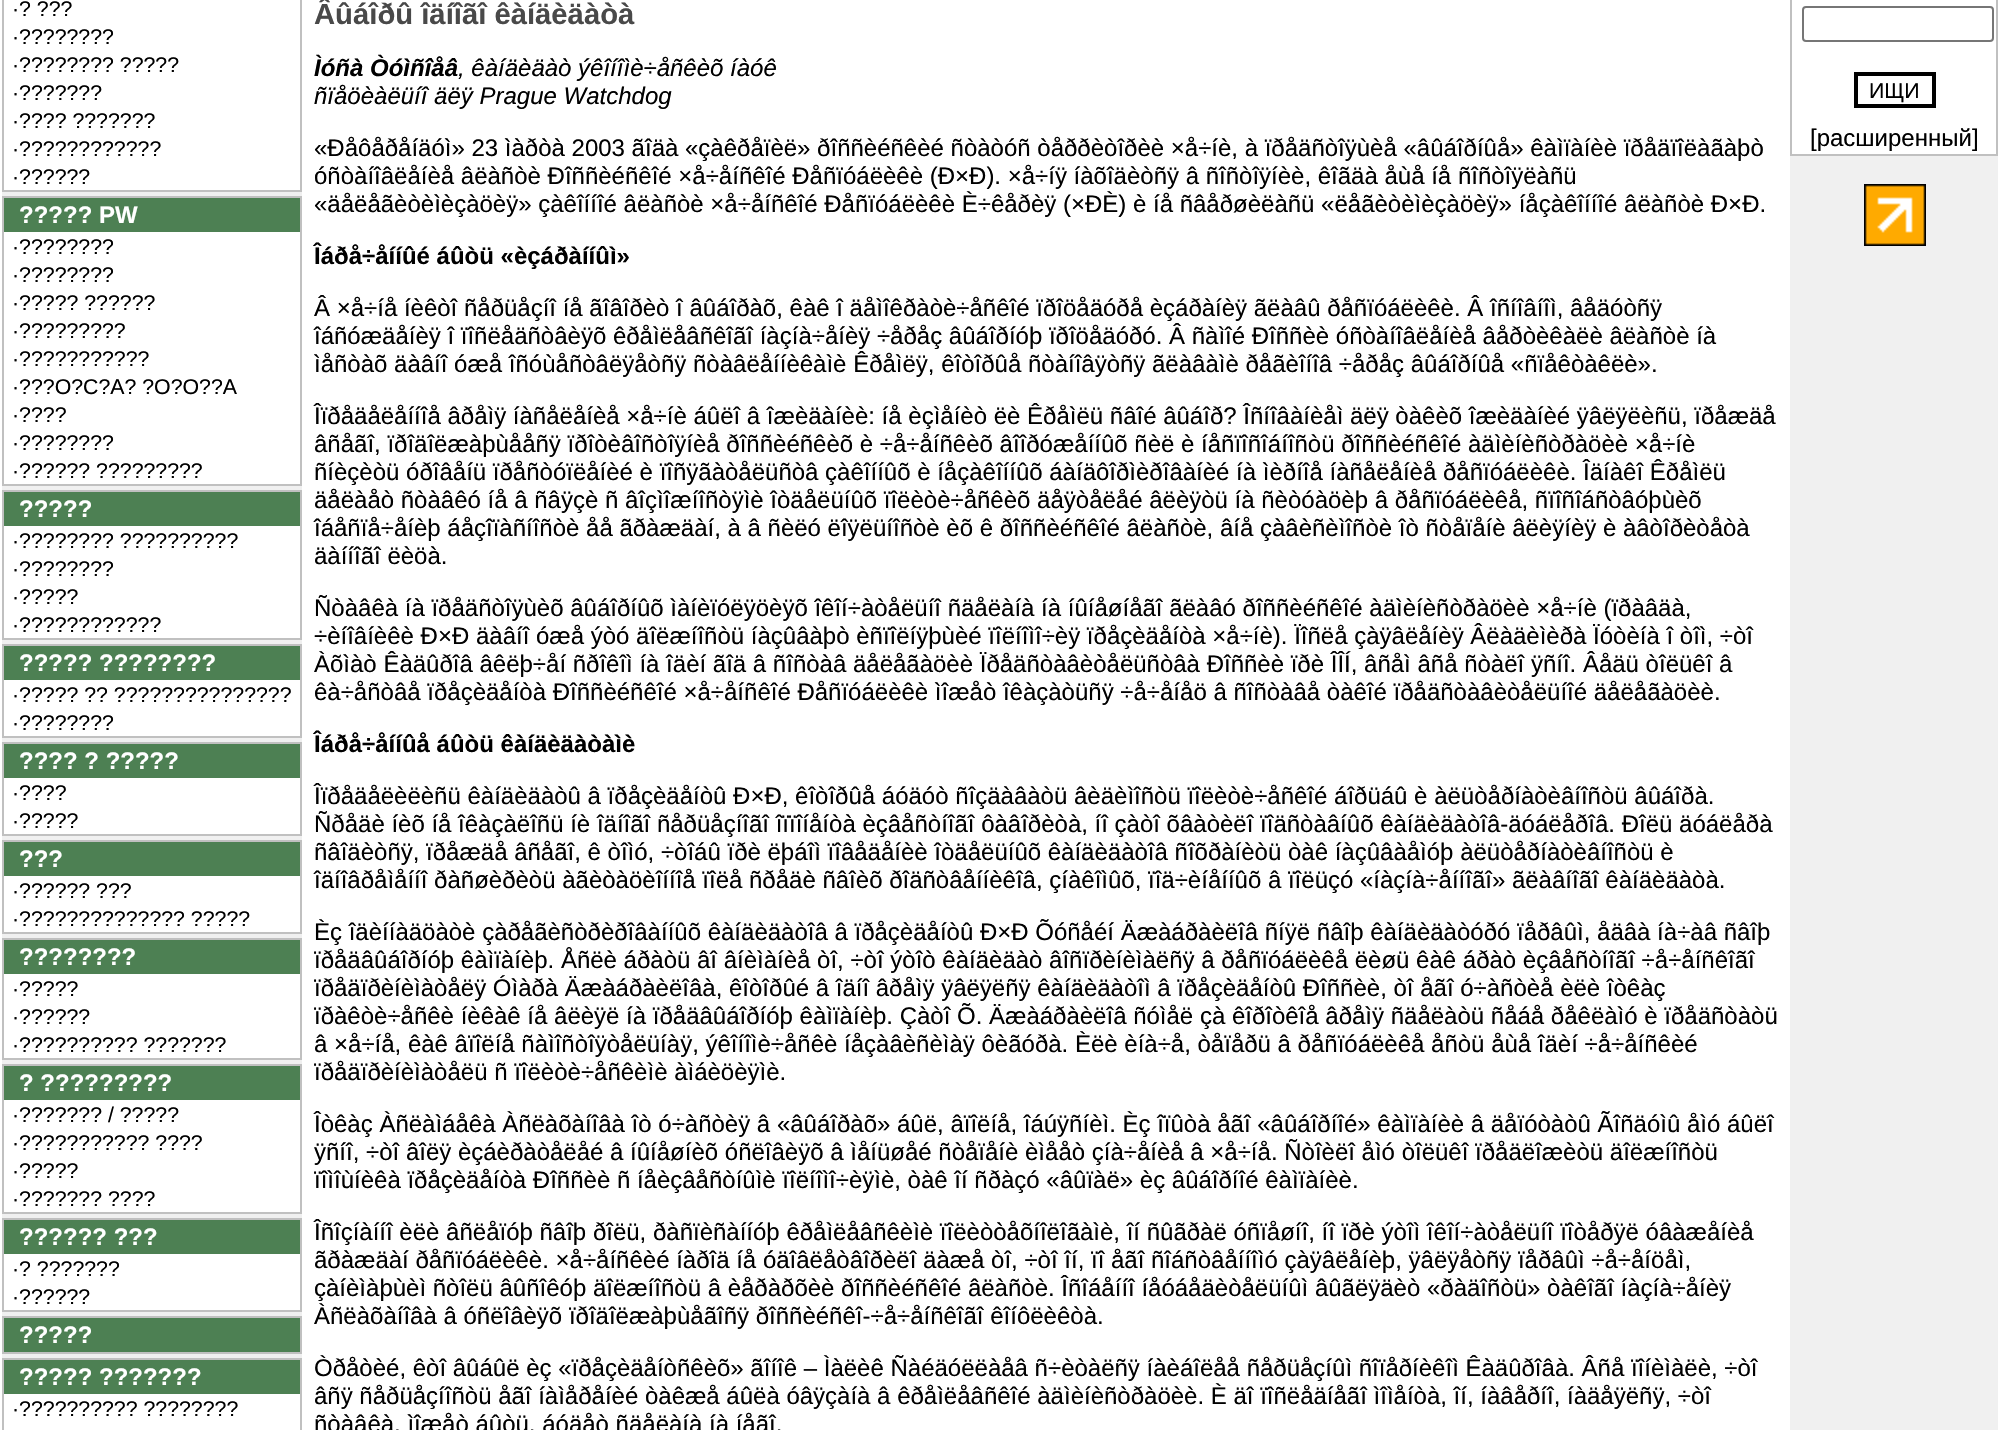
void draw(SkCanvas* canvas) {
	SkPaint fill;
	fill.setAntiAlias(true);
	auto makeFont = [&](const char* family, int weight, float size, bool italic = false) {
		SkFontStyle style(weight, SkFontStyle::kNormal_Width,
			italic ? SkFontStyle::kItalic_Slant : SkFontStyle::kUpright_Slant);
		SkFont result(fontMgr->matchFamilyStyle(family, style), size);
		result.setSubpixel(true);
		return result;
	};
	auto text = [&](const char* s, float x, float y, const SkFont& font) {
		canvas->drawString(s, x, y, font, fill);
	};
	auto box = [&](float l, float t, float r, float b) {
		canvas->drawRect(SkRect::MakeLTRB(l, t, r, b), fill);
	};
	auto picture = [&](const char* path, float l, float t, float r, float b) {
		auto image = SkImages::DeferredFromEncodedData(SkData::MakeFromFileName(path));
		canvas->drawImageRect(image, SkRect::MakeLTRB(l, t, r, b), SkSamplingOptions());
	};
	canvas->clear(0xFFFFFFFF);
	fill.setColor(0xFFF0F0F0);
	box(2, 192, 302, 1358);
	fill.setColor(0xFFC0C0C0);
	box(2, 0, 302, 192);
	fill.setColor(0xFFFFFFFF);
	box(4, 0, 300, 190);
	fill.setColor(0xFFC0C0C0);
	box(2, 196, 302, 486);
	fill.setColor(0xFF4D8053);
	box(4, 198, 300, 232);
	fill.setColor(0xFFFFFFFF);
	box(4, 232, 300, 484);
	fill.setColor(0xFFC0C0C0);
	box(2, 490, 302, 640);
	fill.setColor(0xFF4D8053);
	box(4, 492, 300, 526);
	fill.setColor(0xFFFFFFFF);
	box(4, 526, 300, 638);
	fill.setColor(0xFFC0C0C0);
	box(2, 644, 302, 738);
	fill.setColor(0xFF4D8053);
	box(4, 646, 300, 680);
	fill.setColor(0xFFFFFFFF);
	box(4, 680, 300, 736);
	fill.setColor(0xFFC0C0C0);
	box(2, 742, 302, 836);
	fill.setColor(0xFF4D8053);
	box(4, 744, 300, 778);
	fill.setColor(0xFFFFFFFF);
	box(4, 778, 300, 834);
	fill.setColor(0xFFC0C0C0);
	box(2, 840, 302, 934);
	fill.setColor(0xFF4D8053);
	box(4, 842, 300, 876);
	fill.setColor(0xFFFFFFFF);
	box(4, 876, 300, 932);
	fill.setColor(0xFFC0C0C0);
	box(2, 938, 302, 1060);
	fill.setColor(0xFF4D8053);
	box(4, 940, 300, 974);
	fill.setColor(0xFFFFFFFF);
	box(4, 974, 300, 1058);
	fill.setColor(0xFFC0C0C0);
	box(2, 1064, 302, 1214);
	fill.setColor(0xFF4D8053);
	box(4, 1066, 300, 1100);
	fill.setColor(0xFFFFFFFF);
	box(4, 1100, 300, 1212);
	fill.setColor(0xFFC0C0C0);
	box(2, 1218, 302, 1312);
	fill.setColor(0xFF4D8053);
	box(4, 1220, 300, 1254);
	fill.setColor(0xFFFFFFFF);
	box(4, 1254, 300, 1310);
	fill.setColor(0xFFC0C0C0);
	box(2, 1316, 302, 1354);
	fill.setColor(0xFF4D8053);
	box(4, 1318, 300, 1352);
	fill.setColor(0xFFC0C0C0);
	box(2, 1358, 302, 1430);
	fill.setColor(0xFF4D8053);
	box(4, 1360, 300, 1394);
	fill.setColor(0xFFFFFFFF);
	box(4, 1394, 300, 1430);
	fill.setColor(0xFFF0F0F0);
	box(1790, 156, 1998, 1430);
	fill.setColor(0xFFC0C0C0);
	box(1790, 0, 1998, 156);
	fill.setColor(0xFFFFFFFF);
	box(1792, 0, 1996, 154);
	fill.setStyle(SkPaint::kStroke_Style);
	fill.setStrokeWidth(2);
	fill.setColor(0xFF767676);
	canvas->drawRoundRect(SkRect::MakeLTRB(1803, 7, 1993, 41), 3, 3, fill);
	fill.setStrokeWidth(4);
	fill.setColor(0xFF000000);
	canvas->drawRect(SkRect::MakeLTRB(1856, 74, 1934, 106), fill);
	picture("image0.png", 1864, 184, 1926, 246);
	auto font1 = makeFont("Liberation Sans", 400, 21.3f);
	fill.setStyle(SkPaint::kFill_Style);
	text("·? ?\077?", 12, 16, font1);
	text("·?\077?\077?\077?\077", 12, 44, font1);
	text("·?\077?\077?\077?\077 ?\077?\077?", 12, 72, font1);
	text("·?\077?\077?\077?", 12, 100, font1);
	text("·?\077?\077 ?\077?\077?\077?", 12, 128, font1);
	text("·?\077?\077?\077?\077?\077?\077", 12, 156, font1);
	text("·?\077?\077?\077", 12, 184, font1);
	auto font2 = makeFont("Liberation Sans", 700, 24);
	fill.setColor(0xFFFFFFFF);
	text("?\077?\077? PW", 19, 223, font2);
	fill.setColor(0xFF000000);
	text("·?\077?\077?\077?\077", 12, 254, font1);
	text("·?\077?\077?\077?\077", 12, 282, font1);
	text("·?\077?\077? ?\077?\077?\077", 12, 310, font1);
	text("·?\077?\077?\077?\077?", 12, 338, font1);
	text("·?\077?\077?\077?\077?\077?", 12, 366, font1);
	text("·?\077?O?C?A? ?O?O?\077A", 12, 394, font1);
	text("·?\077?\077", 12, 422, font1);
	text("·?\077?\077?\077?\077", 12, 450, font1);
	text("·?\077?\077?\077 ?\077?\077?\077?\077?", 12, 478, font1);
	fill.setColor(0xFFFFFFFF);
	text("?\077?\077?", 19, 517, font2);
	fill.setColor(0xFF000000);
	text("·?\077?\077?\077?\077 ?\077?\077?\077?\077?\077", 12, 548, font1);
	text("·?\077?\077?\077?\077", 12, 576, font1);
	text("·?\077?\077?", 12, 604, font1);
	text("·?\077?\077?\077?\077?\077?\077", 12, 632, font1);
	fill.setColor(0xFFFFFFFF);
	text("?\077?\077? ?\077?\077?\077?\077", 19, 671, font2);
	fill.setColor(0xFF000000);
	text("·?\077?\077? ?\077 ?\077?\077?\077?\077?\077?\077?\077?", 12, 702, font1);
	text("·?\077?\077?\077?\077", 12, 730, font1);
	fill.setColor(0xFFFFFFFF);
	text("?\077?\077 ? ?\077?\077?", 19, 769, font2);
	fill.setColor(0xFF000000);
	text("·?\077?\077", 12, 800, font1);
	text("·?\077?\077?", 12, 828, font1);
	fill.setColor(0xFFFFFFFF);
	text("?\077?", 19, 867, font2);
	fill.setColor(0xFF000000);
	text("·?\077?\077?\077 ?\077?", 12, 898, font1);
	text("·?\077?\077?\077?\077?\077?\077?\077 ?\077?\077?", 12, 926, font1);
	fill.setColor(0xFFFFFFFF);
	text("?\077?\077?\077?\077", 19, 965, font2);
	fill.setColor(0xFF000000);
	text("·?\077?\077?", 12, 996, font1);
	text("·?\077?\077?\077", 12, 1024, font1);
	text("·?\077?\077?\077?\077?\077 ?\077?\077?\077?", 12, 1052, font1);
	fill.setColor(0xFFFFFFFF);
	text("? ?\077?\077?\077?\077?", 19, 1091, font2);
	fill.setColor(0xFF000000);
	text("·?\077?\077?\077? / ?\077?\077?", 12, 1122, font1);
	text("·?\077?\077?\077?\077?\077? ?\077?\077", 12, 1150, font1);
	text("·?\077?\077?", 12, 1178, font1);
	text("·?\077?\077?\077? ?\077?\077", 12, 1206, font1);
	fill.setColor(0xFFFFFFFF);
	text("?\077?\077?\077 ?\077?", 19, 1245, font2);
	fill.setColor(0xFF000000);
	text("·? ?\077?\077?\077?", 12, 1276, font1);
	text("·?\077?\077?\077", 12, 1304, font1);
	fill.setColor(0xFFFFFFFF);
	text("?\077?\077?", 19, 1343, font2);
	text("?\077?\077? ?\077?\077?\077?", 19, 1385, font2);
	fill.setColor(0xFF000000);
	text("·?\077?\077?\077?\077?\077 ?\077?\077?\077?\077", 12, 1416, font1);
	auto font3 = makeFont("Liberation Sans", 700, 29.25f);
	fill.setColor(0xFF494949);
	text("Âûáîðû îäíîãî êàíäèäàòà", 314, 24, font3);
	auto font4 = makeFont("Liberation Sans", 700, 24, true);
	fill.setColor(0xFF000000);
	text("Ìóñà Òóìñîåâ", 314, 76, font4);
	auto font5 = makeFont("Liberation Sans", 400, 24, true);
	text(", êàíäèäàò ýêîíîìè÷åñêèõ íàóê", 458, 76, font5);
	text("ñïåöèàëüíî äëÿ Prague Watchdog", 314, 104, font5);
	auto font6 = makeFont("Liberation Sans", 400, 24);
	text("«Ðåôåðåíäóì» 23 ìàðòà 2003 ãîäà «çàêðåïèë» ðîññèéñêèé ñòàòóñ òåððèòîðèè ×å÷íè, à ïðåäñòîÿùèå «âûáîðíûå» êàìïàíèè ïðåäïîëàãàþò", 314, 156, font6);
	text("óñòàíîâëåíèå âëàñòè Ðîññèéñêîé ×å÷åíñêîé Ðåñïóáëèêè (Ð×Ð). ×å÷íÿ íàõîäèòñÿ â ñîñòîÿíèè, êîãäà åùå íå ñîñòîÿëàñü", 314, 184, font6);
	text("«äåëåãèòèìèçàöèÿ» çàêîííîé âëàñòè ×å÷åíñêîé Ðåñïóáëèêè È÷êåðèÿ (×ÐÈ) è íå ñâåðøèëàñü «ëåãèòèìèçàöèÿ» íåçàêîííîé âëàñòè Ð×Ð.", 314, 212, font6);
	text("Îáðå÷åííûé áûòü «èçáðàííûì»", 314, 264, font2);
	text("Â ×å÷íå íèêòî ñåðüåçíî íå ãîâîðèò î âûáîðàõ, êàê î äåìîêðàòè÷åñêîé ïðîöåäóðå èçáðàíèÿ ãëàâû ðåñïóáëèêè. Â îñíîâíîì, âåäóòñÿ", 314, 316, font6);
	text("îáñóæäåíèÿ î ïîñëåäñòâèÿõ êðåìëåâñêîãî íàçíà÷åíèÿ ÷åðåç âûáîðíóþ ïðîöåäóðó. Â ñàìîé Ðîññèè óñòàíîâëåíèå âåðòèêàëè âëàñòè íà", 314, 344, font6);
	text("ìåñòàõ äàâíî óæå îñóùåñòâëÿåòñÿ ñòàâëåííèêàìè Êðåìëÿ, êîòîðûå ñòàíîâÿòñÿ ãëàâàìè ðåãèîíîâ ÷åðåç âûáîðíûå «ñïåêòàêëè».", 314, 372, font6);
	text("Îïðåäåëåííîå âðåìÿ íàñåëåíèå ×å÷íè áûëî â îæèäàíèè: íå èçìåíèò ëè Êðåìëü ñâîé âûáîð? Îñíîâàíèåì äëÿ òàêèõ îæèäàíèé ÿâëÿëèñü, ïðåæäå", 314, 424, font6);
	text("âñåãî, ïðîäîëæàþùååñÿ ïðîòèâîñòîÿíèå ðîññèéñêèõ è ÷å÷åíñêèõ âîîðóæåííûõ ñèë è íåñïîñîáíîñòü ðîññèéñêîé àäìèíèñòðàöèè ×å÷íè", 314, 452, font6);
	text("ñíèçèòü óðîâåíü ïðåñòóïëåíèé è ïîñÿãàòåëüñòâ çàêîííûõ è íåçàêîííûõ áàíäôîðìèðîâàíèé íà ìèðíîå íàñåëåíèå ðåñïóáëèêè. Îäíàêî Êðåìëü", 314, 480, font6);
	text("äåëàåò ñòàâêó íå â ñâÿçè ñ âîçìîæíîñòÿìè îòäåëüíûõ ïîëèòè÷åñêèõ äåÿòåëåé âëèÿòü íà ñèòóàöèþ â ðåñïóáëèêå, ñïîñîáñòâóþùèõ", 314, 508, font6);
	text("îáåñïå÷åíèþ áåçîïàñíîñòè åå ãðàæäàí, à â ñèëó ëîÿëüíîñòè èõ ê ðîññèéñêîé âëàñòè, âíå çàâèñèìîñòè îò ñòåïåíè âëèÿíèÿ è àâòîðèòåòà", 314, 536, font6);
	text("äàííîãî ëèöà.", 314, 564, font6);
	text("Ñòàâêà íà ïðåäñòîÿùèõ âûáîðíûõ ìàíèïóëÿöèÿõ îêîí÷àòåëüíî ñäåëàíà íà íûíåøíåãî ãëàâó ðîññèéñêîé àäìèíèñòðàöèè ×å÷íè (ïðàâäà,", 314, 616, font6);
	text("÷èíîâíèêè Ð×Ð äàâíî óæå ýòó äîëæíîñòü íàçûâàþò èñïîëíÿþùèé ïîëíîìî÷èÿ ïðåçèäåíòà ×å÷íè). Ïîñëå çàÿâëåíèÿ Âëàäèìèðà Ïóòèíà î òîì, ÷òî", 314, 644, font6);
	text("Àõìàò Êàäûðîâ âêëþ÷åí ñðîêîì íà îäèí ãîä â ñîñòàâ äåëåãàöèè Ïðåäñòàâèòåëüñòâà Ðîññèè ïðè ÎÎÍ, âñåì âñå ñòàëî ÿñíî. Âåäü òîëüêî â", 314, 672, font6);
	text("êà÷åñòâå ïðåçèäåíòà Ðîññèéñêîé ×å÷åíñêîé Ðåñïóáëèêè ìîæåò îêàçàòüñÿ ÷å÷åíåö â ñîñòàâå òàêîé ïðåäñòàâèòåëüíîé äåëåãàöèè.", 314, 700, font6);
	text("Îáðå÷åííûå áûòü êàíäèäàòàìè", 314, 752, font2);
	text("Îïðåäåëèëèñü êàíäèäàòû â ïðåçèäåíòû Ð×Ð, êîòîðûå áóäóò ñîçäàâàòü âèäèìîñòü ïîëèòè÷åñêîé áîðüáû è àëüòåðíàòèâíîñòü âûáîðà.", 314, 804, font6);
	text("Ñðåäè íèõ íå îêàçàëîñü íè îäíîãî ñåðüåçíîãî îïïîíåíòà èçâåñòíîãî ôàâîðèòà, íî çàòî õâàòèëî ïîäñòàâíûõ êàíäèäàòîâ-äóáëåðîâ. Ðîëü äóáëåðà", 314, 832, font6);
	text("ñâîäèòñÿ, ïðåæäå âñåãî, ê òîìó, ÷òîáû ïðè ëþáîì ïîâåäåíèè îòäåëüíûõ êàíäèäàòîâ ñîõðàíèòü òàê íàçûâàåìóþ àëüòåðíàòèâíîñòü è", 314, 860, font6);
	text("îäíîâðåìåííî ðàñøèðèòü àãèòàöèîííîå ïîëå ñðåäè ñâîèõ ðîäñòâåííèêîâ, çíàêîìûõ, ïîä÷èíåííûõ â ïîëüçó «íàçíà÷åííîãî» ãëàâíîãî êàíäèäàòà.", 314, 888, font6);
	text("Èç îäèííàäöàòè çàðåãèñòðèðîâàííûõ êàíäèäàòîâ â ïðåçèäåíòû Ð×Ð Õóñåéí Äæàáðàèëîâ ñíÿë ñâîþ êàíäèäàòóðó ïåðâûì, åäâà íà÷àâ ñâîþ", 314, 940, font6);
	text("ïðåäâûáîðíóþ êàìïàíèþ. Åñëè áðàòü âî âíèìàíèå òî, ÷òî ýòîò êàíäèäàò âîñïðèíèìàëñÿ â ðåñïóáëèêå ëèøü êàê áðàò èçâåñòíîãî ÷å÷åíñêîãî", 314, 968, font6);
	text("ïðåäïðèíèìàòåëÿ Óìàðà Äæàáðàèëîâà, êîòîðûé â îäíî âðåìÿ ÿâëÿëñÿ êàíäèäàòîì â ïðåçèäåíòû Ðîññèè, òî åãî ó÷àñòèå èëè îòêàç", 314, 996, font6);
	text("ïðàêòè÷åñêè íèêàê íå âëèÿë íà ïðåäâûáîðíóþ êàìïàíèþ. Çàòî Õ. Äæàáðàèëîâ ñóìåë çà êîðîòêîå âðåìÿ ñäåëàòü ñåáå ðåêëàìó è ïðåäñòàòü", 314, 1024, font6);
	text("â ×å÷íå, êàê âïîëíå ñàìîñòîÿòåëüíàÿ, ýêîíîìè÷åñêè íåçàâèñèìàÿ ôèãóðà. Èëè èíà÷å, òåïåðü â ðåñïóáëèêå åñòü åùå îäèí ÷å÷åíñêèé", 314, 1052, font6);
	text("ïðåäïðèíèìàòåëü ñ ïîëèòè÷åñêèìè àìáèöèÿìè.", 314, 1080, font6);
	text("Îòêàç Àñëàìáåêà Àñëàõàíîâà îò ó÷àñòèÿ â «âûáîðàõ» áûë, âïîëíå, îáúÿñíèì. Èç îïûòà åãî «âûáîðíîé» êàìïàíèè â äåïóòàòû Ãîñäóìû åìó áûëî", 314, 1132, font6);
	text("ÿñíî, ÷òî âîëÿ èçáèðàòåëåé â íûíåøíèõ óñëîâèÿõ â ìåíüøåé ñòåïåíè èìååò çíà÷åíèå â ×å÷íå. Ñòîèëî åìó òîëüêî ïðåäëîæèòü äîëæíîñòü", 314, 1160, font6);
	text("ïîìîùíèêà ïðåçèäåíòà Ðîññèè ñ íåèçâåñòíûìè ïîëíîìî÷èÿìè, òàê îí ñðàçó «âûïàë» èç âûáîðíîé êàìïàíèè.", 314, 1188, font6);
	text("Îñîçíàííî èëè âñëåïóþ ñâîþ ðîëü, ðàñïèñàííóþ êðåìëåâñêèìè ïîëèòòåõíîëîãàìè, îí ñûãðàë óñïåøíî, íî ïðè ýòîì îêîí÷àòåëüíî ïîòåðÿë óâàæåíèå", 314, 1240, font6);
	text("ãðàæäàí ðåñïóáëèêè. ×å÷åíñêèé íàðîä íå óäîâëåòâîðèëî äàæå òî, ÷òî îí, ïî åãî ñîáñòâåííîìó çàÿâëåíèþ, ÿâëÿåòñÿ ïåðâûì ÷å÷åíöåì,", 314, 1268, font6);
	text("çàíèìàþùèì ñòîëü âûñîêóþ äîëæíîñòü â èåðàðõèè ðîññèéñêîé âëàñòè. Îñîáåííî íåóáåäèòåëüíûì âûãëÿäèò «ðàäîñòü» òàêîãî íàçíà÷åíèÿ", 314, 1296, font6);
	text("Àñëàõàíîâà â óñëîâèÿõ ïðîäîëæàþùåãîñÿ ðîññèéñêî-÷å÷åíñêîãî êîíôëèêòà.", 314, 1324, font6);
	text("Òðåòèé, êòî âûáûë èç «ïðåçèäåíòñêèõ» ãîíîê – Ìàëèê Ñàéäóëëàåâ ñ÷èòàëñÿ íàèáîëåå ñåðüåçíûì ñîïåðíèêîì Êàäûðîâà. Âñå ïîíèìàëè, ÷òî", 314, 1376, font6);
	text("âñÿ ñåðüåçíîñòü åãî íàìåðåíèé òàêæå áûëà óâÿçàíà â êðåìëåâñêîé àäìèíèñòðàöèè. È äî ïîñëåäíåãî ìîìåíòà, îí, íàâåðíî, íàäåÿëñÿ, ÷òî", 314, 1404, font6);
	text("ñòàâêà, ìîæåò áûòü, áóäåò ñäåëàíà íà íåãî.", 314, 1432, font6);
	text("ИЩИ", 1869, 98, font1);
	text("[расширенный]", 1810, 146, font6);
}
